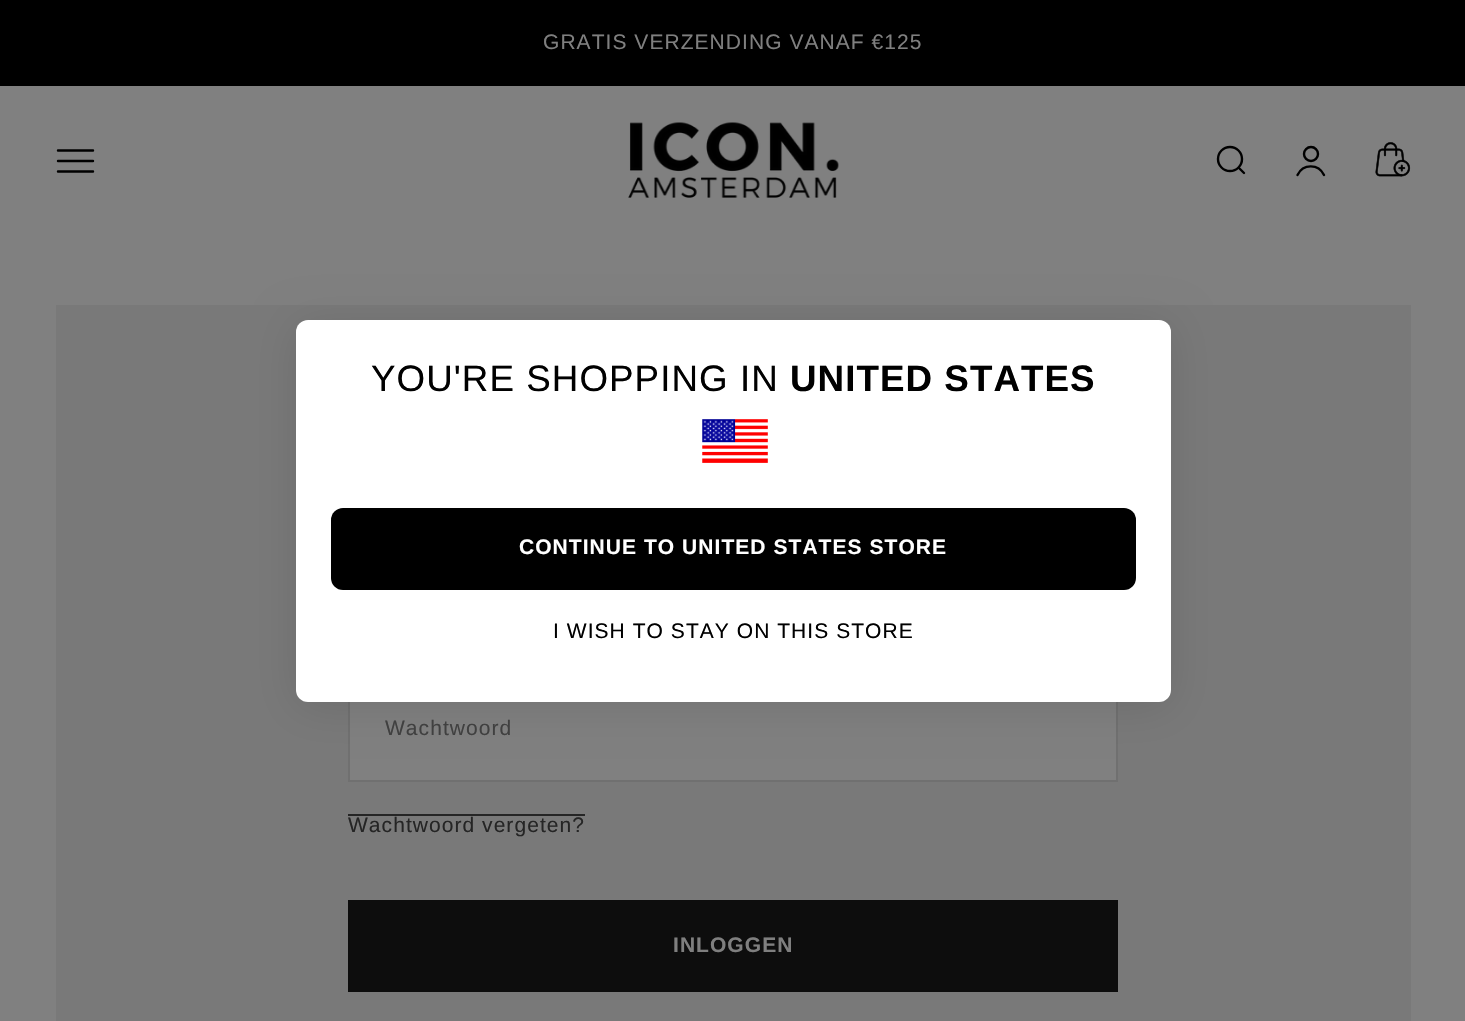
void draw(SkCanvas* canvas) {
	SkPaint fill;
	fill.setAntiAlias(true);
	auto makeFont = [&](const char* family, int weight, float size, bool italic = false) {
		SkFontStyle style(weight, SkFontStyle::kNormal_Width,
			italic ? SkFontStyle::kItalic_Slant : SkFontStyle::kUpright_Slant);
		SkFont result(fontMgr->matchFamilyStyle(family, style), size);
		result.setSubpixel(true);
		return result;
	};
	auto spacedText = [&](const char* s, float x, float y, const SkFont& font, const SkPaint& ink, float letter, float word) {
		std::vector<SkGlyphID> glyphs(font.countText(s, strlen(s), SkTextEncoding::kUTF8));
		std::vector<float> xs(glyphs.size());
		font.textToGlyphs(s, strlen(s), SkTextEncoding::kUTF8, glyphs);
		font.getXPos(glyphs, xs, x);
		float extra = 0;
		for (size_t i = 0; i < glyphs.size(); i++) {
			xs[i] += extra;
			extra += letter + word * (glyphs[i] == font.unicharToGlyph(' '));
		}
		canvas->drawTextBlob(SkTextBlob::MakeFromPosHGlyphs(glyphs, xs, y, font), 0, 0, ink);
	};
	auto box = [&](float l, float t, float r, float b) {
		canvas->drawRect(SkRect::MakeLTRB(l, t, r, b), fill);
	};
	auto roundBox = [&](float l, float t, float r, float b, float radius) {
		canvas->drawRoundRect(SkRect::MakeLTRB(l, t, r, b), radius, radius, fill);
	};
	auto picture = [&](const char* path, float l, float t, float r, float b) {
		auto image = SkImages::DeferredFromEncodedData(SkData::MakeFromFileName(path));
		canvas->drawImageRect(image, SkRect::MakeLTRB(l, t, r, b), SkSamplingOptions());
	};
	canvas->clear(0xFF808080);
	fill.setColor(0xFF000000);
	box(0, 0, 1465, 86);
	fill.setStyle(SkPaint::kStroke_Style);
	fill.setStrokeWidth(2.4f);
	fill.setStrokeCap(SkPaint::kRound_Cap);
	canvas->drawPath(SkPathBuilder().moveTo(58, 150.5f).lineTo(93, 150.5f).moveTo(58, 161).lineTo(93, 161).moveTo(58, 171.5f).lineTo(93, 171.5f).detach(), fill);
	picture("image0.png", 628, 122, 839, 198);
	fill.setStrokeCap(SkPaint::kButt_Cap);
	canvas->drawCircle(1230, 159, 12, fill);
	fill.setStrokeCap(SkPaint::kRound_Cap);
	fill.setStrokeJoin(SkPaint::kRound_Join);
	canvas->drawPath(SkPathBuilder().moveTo(1239, 168).lineTo(1244, 173).detach(), fill);
	fill.setStrokeCap(SkPaint::kButt_Cap);
	fill.setStrokeJoin(SkPaint::kMiter_Join);
	canvas->drawCircle(1311, 154, 7, fill);
	fill.setStrokeCap(SkPaint::kRound_Cap);
	canvas->drawPath(SkPathBuilder().moveTo(1297.5f, 175).cubicTo(1303, 163.5f, 1318.5f, 163.5f, 1324, 175).detach(), fill);
	picture("image1.png", 1375, 142, 1411, 177);
	fill.setStyle(SkPaint::kFill_Style);
	fill.setColor(0xFF797979);
	box(56, 305, 1411, 1021);
	fill.setColor(0xFF808080);
	box(350, 702, 1116, 780);
	fill.setStyle(SkPaint::kStroke_Style);
	fill.setStrokeWidth(2);
	fill.setStrokeCap(SkPaint::kButt_Cap);
	fill.setColor(0xFF707070);
	canvas->drawRect(SkRect::MakeLTRB(349, 678, 1117, 781), fill);
	fill.setStyle(SkPaint::kFill_Style);
	fill.setColor(0x1A000000);
	fill.setMaskFilter(SkMaskFilter::MakeBlur(kNormal_SkBlurStyle, 22));
	canvas->drawRoundRect(SkRect::MakeLTRB(296, 326, 1171, 707), 12, 12, fill);
	fill.setMaskFilter(nullptr);
	fill.setColor(0xFFFFFFFF);
	roundBox(296, 320, 1171, 702, 12);
	picture("image2.png", 702, 419, 768, 463);
	fill.setColor(0xFF000000);
	roundBox(331, 508, 1136, 590, 12);
	fill.setColor(0xFF252525);
	box(348, 814, 585, 816);
	fill.setColor(0xFF0D0D0D);
	box(348, 900, 1118, 992);
	auto font1 = makeFont("Liberation Sans", 400, 21);
	fill.setColor(0xFF7F7F7F);
	spacedText("GRATIS VERZENDING VANAF €125", 543, 49, font1, fill, 1.05f, 0);
	auto font2 = makeFont("Liberation Sans", 400, 36.75f);
	fill.setColor(0xFF000000);
	spacedText("YOU'RE SHOPPING IN", 371, 391, font2, fill, 1.05f, 0);
	auto font3 = makeFont("Liberation Sans", 700, 36.75f);
	spacedText("UNITED STATES", 790, 391, font3, fill, 1.05f, 0);
	auto font4 = makeFont("Liberation Sans", 700, 21);
	fill.setColor(0xFFFFFFFF);
	spacedText("CONTINUE TO UNITED STATES STORE", 519, 554, font4, fill, 1.05f, 0);
	fill.setColor(0xFF000000);
	spacedText("I WISH TO STAY ON THIS STORE", 553, 638, font1, fill, 1.05f, 0);
	fill.setColor(0xFF404040);
	spacedText("Wachtwoord", 385, 735, font1, fill, 1.05f, 0);
	fill.setColor(0xFF252525);
	spacedText("Wachtwoord vergeten?", 348, 832, font1, fill, 1.05f, 0);
	fill.setColor(0xFF7F7F7F);
	spacedText("INLOGGEN", 673, 952, font4, fill, 1.05f, 0);
}
